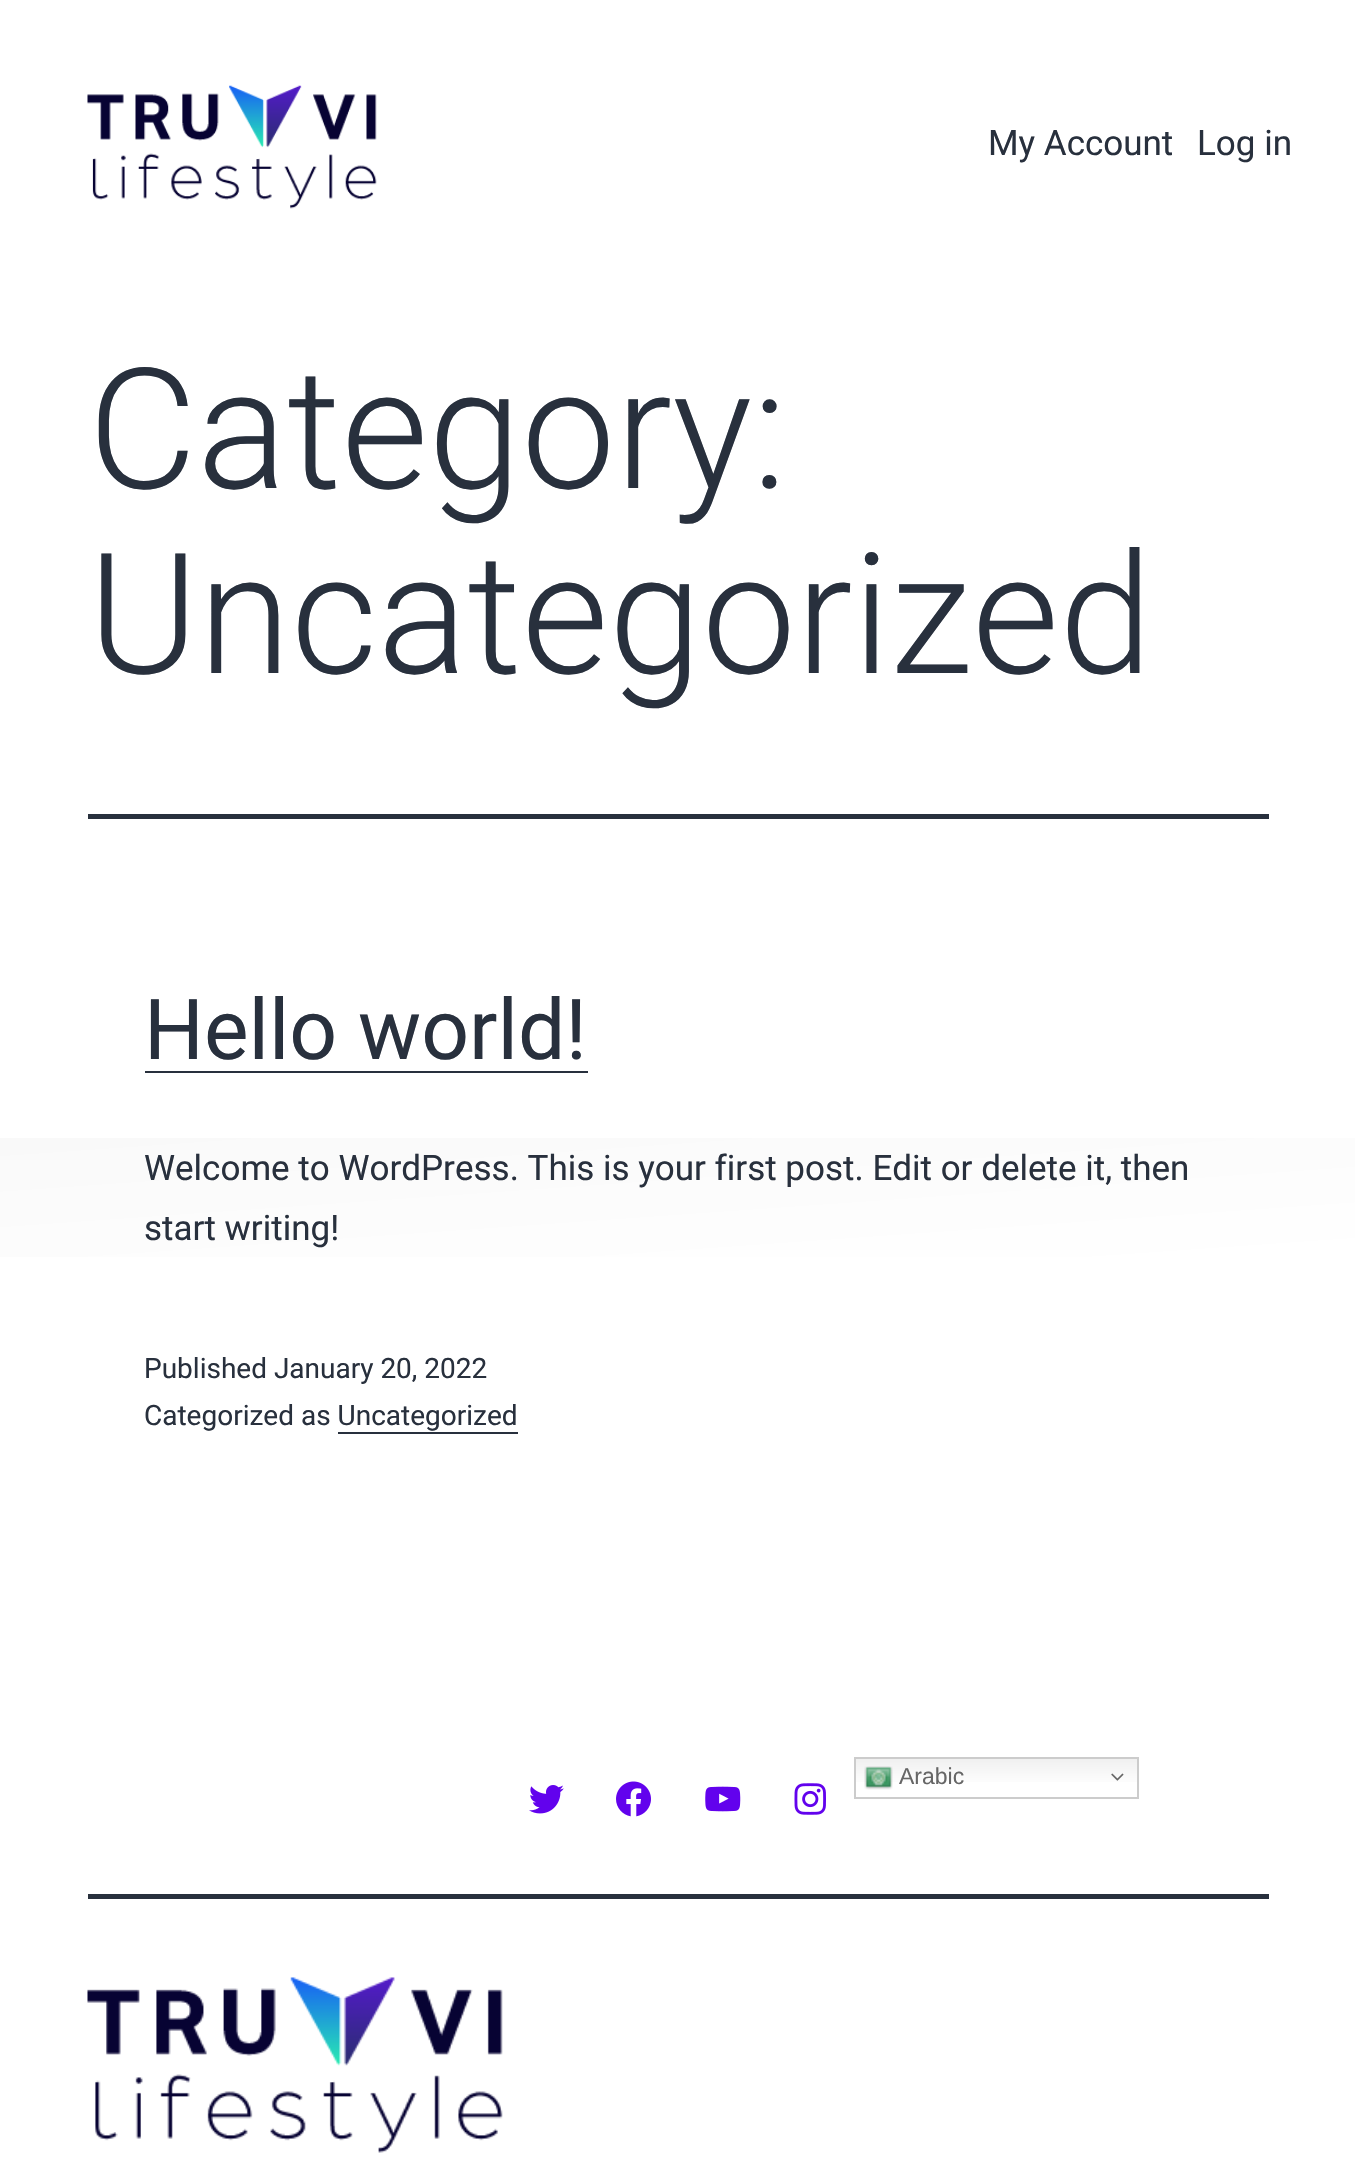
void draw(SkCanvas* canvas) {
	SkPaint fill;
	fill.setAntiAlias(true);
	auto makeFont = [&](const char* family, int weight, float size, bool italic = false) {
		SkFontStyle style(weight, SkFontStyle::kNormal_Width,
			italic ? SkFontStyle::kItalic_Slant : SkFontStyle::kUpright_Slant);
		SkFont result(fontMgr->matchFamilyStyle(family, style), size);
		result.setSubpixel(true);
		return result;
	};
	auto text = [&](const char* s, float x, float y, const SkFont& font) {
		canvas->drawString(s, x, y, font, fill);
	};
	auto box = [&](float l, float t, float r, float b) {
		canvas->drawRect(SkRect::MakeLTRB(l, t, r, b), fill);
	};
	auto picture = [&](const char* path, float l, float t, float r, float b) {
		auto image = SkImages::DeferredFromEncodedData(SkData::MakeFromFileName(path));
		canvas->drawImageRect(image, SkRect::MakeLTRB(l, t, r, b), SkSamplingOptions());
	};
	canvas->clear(0xFFFFFFFF);
	picture("image0.png", 87, 85, 377, 209);
	fill.setColor(0xFF28303D);
	box(88, 814, 1269, 819);
	box(145, 1071, 588, 1073);
	{
		const SkColor colors[] = {0xFFF9F9F9, 0xFFFFFFFF};
		const float stops[] = {0, 1};
		const SkPoint ends[] = {{671, 1091}, {686, 1303}};
		fill.setShader(SkGradientShader::MakeLinear(ends, colors, stops, 2, SkTileMode::kClamp));
		fill.setAlpha(255);
	}
	box(0, 1138, 1355, 1257);
	fill.setShader(nullptr);
	fill.setColor(0xFF28303D);
	box(338, 1432, 518, 1434);
	{
		const SkColor colors[] = {0xFFEFEFEF, 0xFFFFFFFF};
		const float stops[] = {0, 0.7f};
		const SkPoint ends[] = {{997, 1757}, {997, 1799}};
		fill.setShader(SkGradientShader::MakeLinear(ends, colors, stops, 2, SkTileMode::kClamp));
		fill.setAlpha(255);
	}
	box(856, 1759, 1137, 1782);
	fill.setStyle(SkPaint::kStroke_Style);
	fill.setStrokeWidth(2);
	fill.setShader(nullptr);
	fill.setColor(0xFFCCCCCC);
	canvas->drawRect(SkRect::MakeLTRB(855, 1758, 1138, 1798), fill);
	picture("image1.png", 864, 1766, 893, 1790);
	picture("image2.png", 1111, 1773, 1124, 1781);
	picture("image3.png", 529, 1785, 564, 1814);
	picture("image4.png", 616, 1781, 651, 1817);
	picture("image5.png", 705, 1786, 741, 1812);
	picture("image6.png", 794, 1783, 826, 1815);
	fill.setStyle(SkPaint::kFill_Style);
	fill.setColor(0xFF28303D);
	box(88, 1894, 1269, 1899);
	picture("image7.png", 87, 1977, 503, 2153);
	auto font1 = makeFont("Roboto", 400, 35);
	text("My Account", 988, 155, font1);
	text("Log in", 1197, 155, font1);
	auto font2 = makeFont("Roboto", 300, 168);
	text("Category:", 88, 488, font2);
	text("Uncategorized", 88, 673, font2);
	auto font3 = makeFont("Roboto", 400, 84);
	text("Hello world!", 144, 1059, font3);
	text("Welcome to WordPress. This is your first post. Edit or delete it, then", 144, 1180, font1);
	text("start writing!", 144, 1240, font1);
	auto font4 = makeFont("Roboto", 400, 28);
	text("Published January 20, 2022", 144, 1378, font4);
	text("Categorized as Uncategorized", 144, 1425, font4);
	auto font5 = makeFont("Liberation Sans", 400, 23);
	fill.setColor(0xFF666666);
	text("Arabic", 899, 1784, font5);
}
